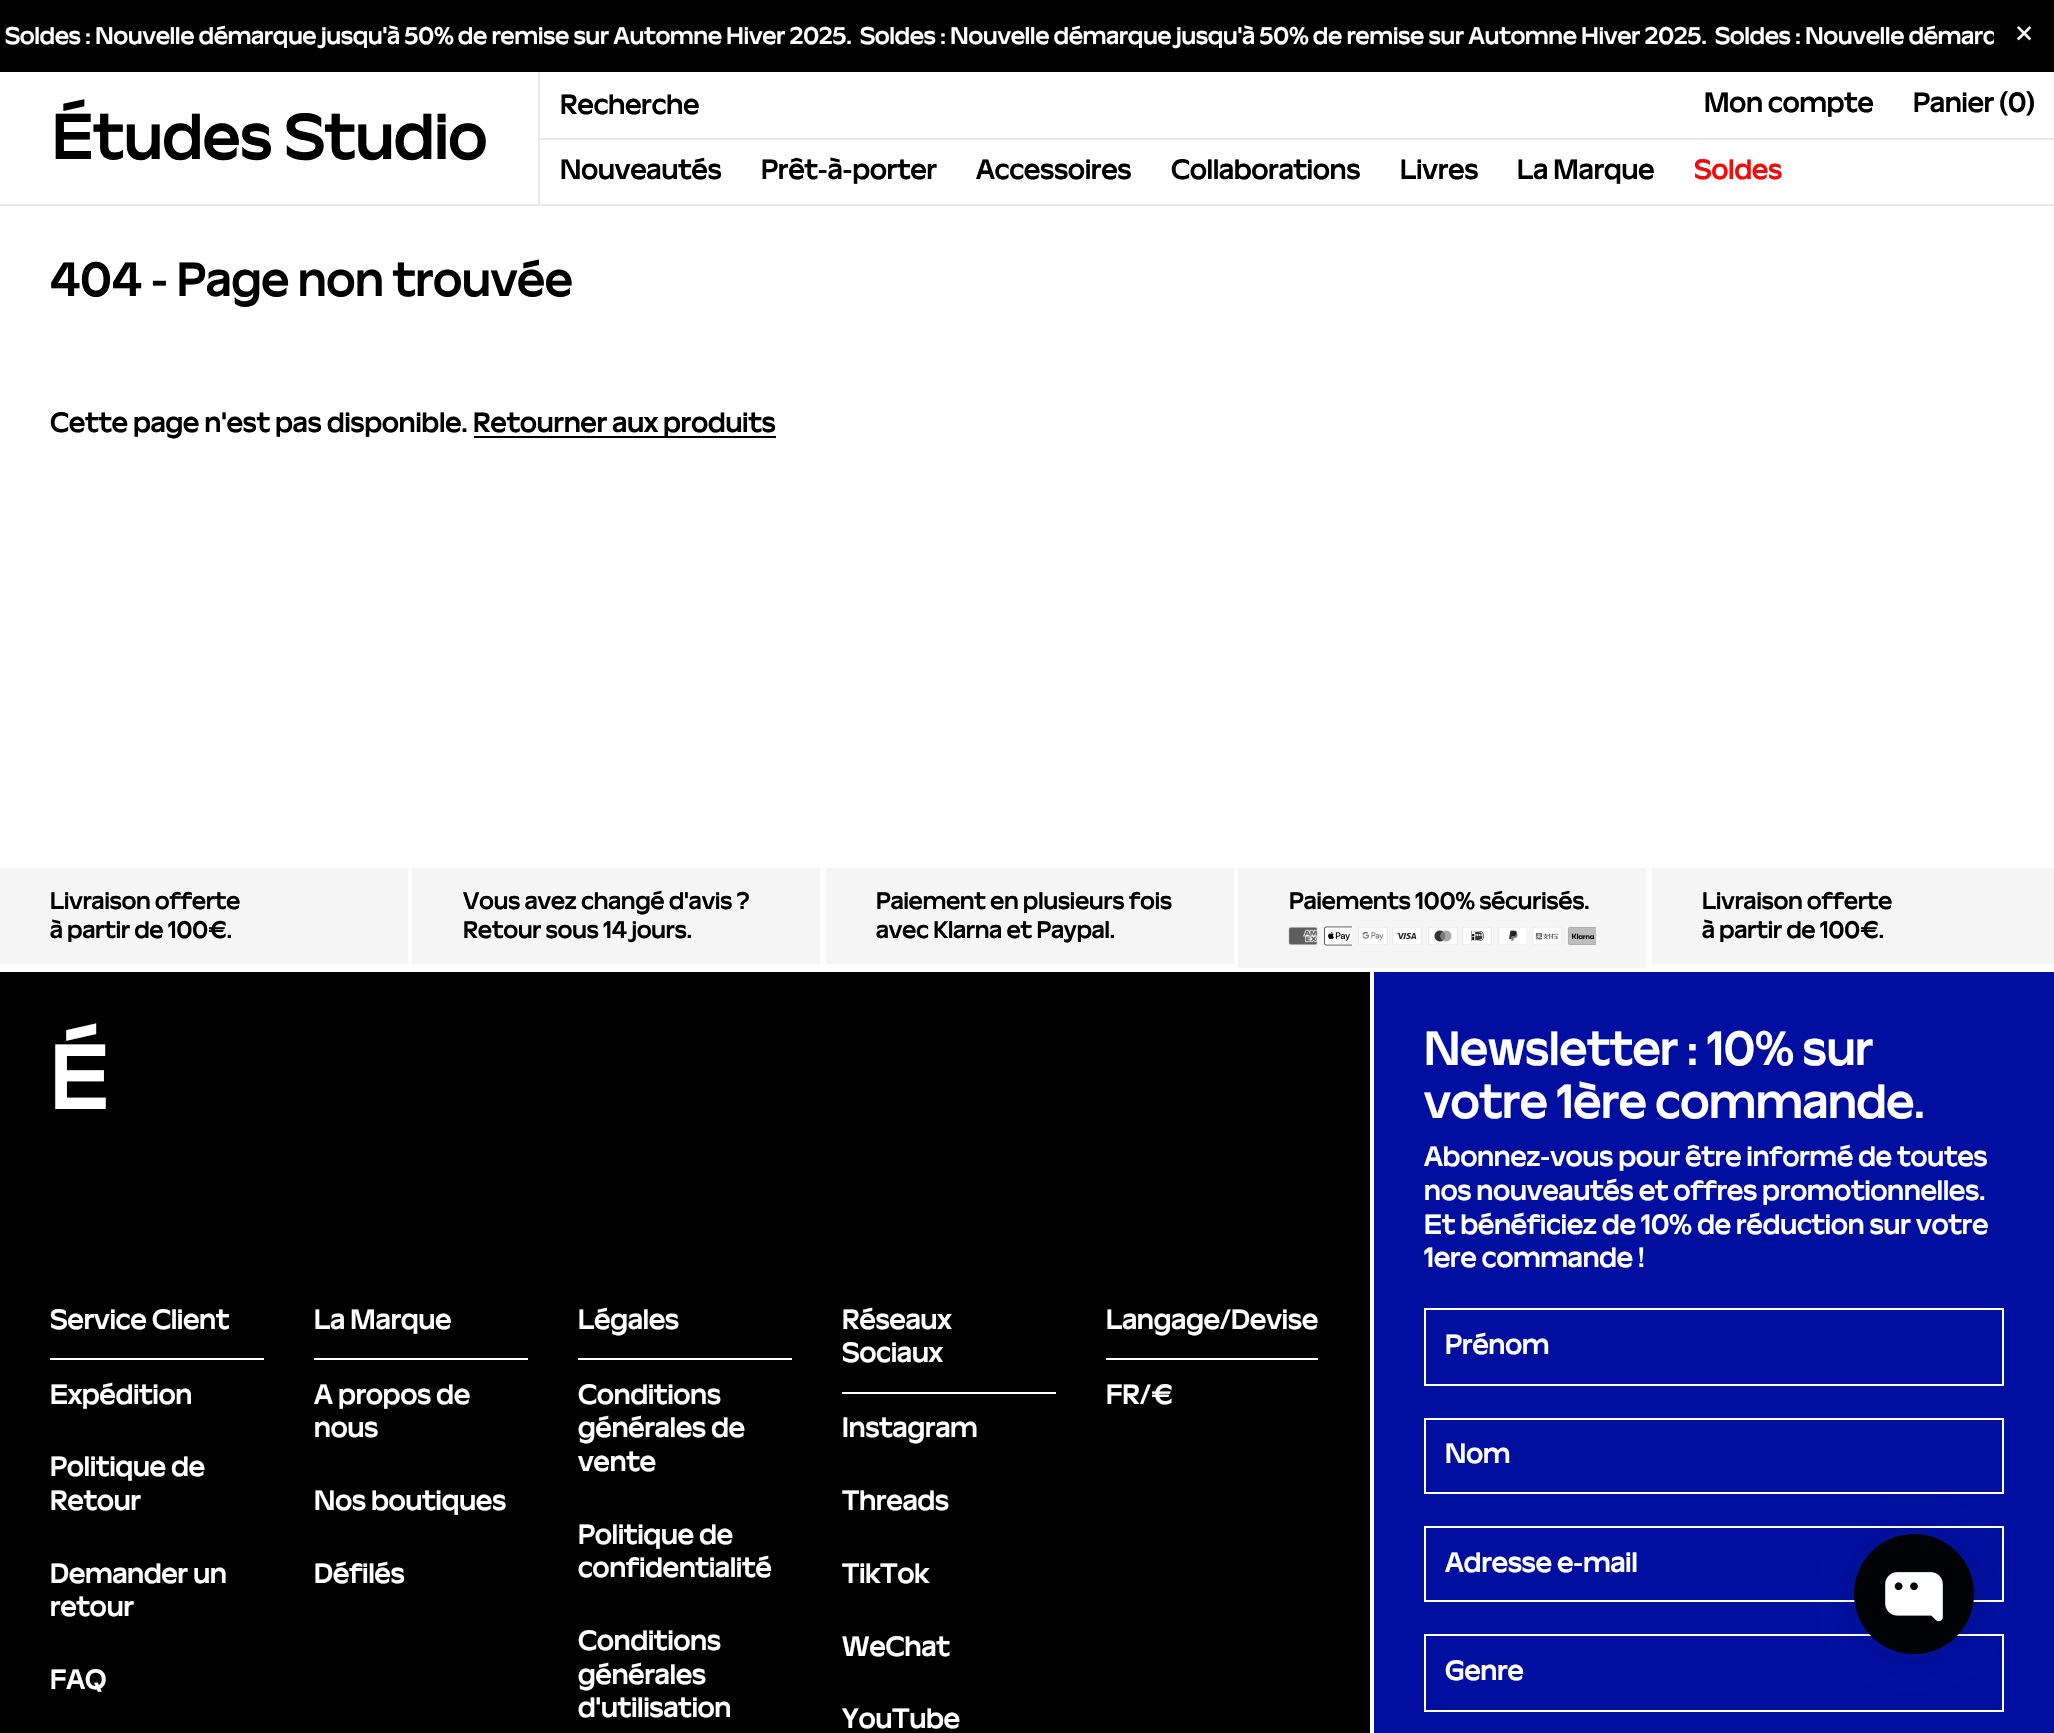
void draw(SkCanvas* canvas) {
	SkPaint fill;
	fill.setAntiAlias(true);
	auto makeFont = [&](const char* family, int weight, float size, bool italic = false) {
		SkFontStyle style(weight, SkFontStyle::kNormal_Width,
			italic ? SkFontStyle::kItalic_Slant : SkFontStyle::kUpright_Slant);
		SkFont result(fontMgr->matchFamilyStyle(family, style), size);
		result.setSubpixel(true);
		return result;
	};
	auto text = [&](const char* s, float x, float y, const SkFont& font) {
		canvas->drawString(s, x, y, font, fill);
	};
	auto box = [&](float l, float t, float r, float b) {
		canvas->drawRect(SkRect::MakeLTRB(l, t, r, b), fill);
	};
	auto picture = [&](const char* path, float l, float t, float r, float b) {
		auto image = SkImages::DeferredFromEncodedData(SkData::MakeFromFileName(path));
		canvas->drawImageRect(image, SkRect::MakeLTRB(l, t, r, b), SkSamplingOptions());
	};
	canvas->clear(0xFFFFFFFF);
	fill.setColor(0xFF000000);
	box(0, 0, 1994, 72);
	fill.setColor(0xFFE9E9E9);
	box(0, 204, 2054, 206);
	box(538, 72, 540, 204);
	box(540, 138, 2054, 140);
	fill.setColor(0xFF000000);
	box(474, 436, 776, 438);
	fill.setColor(0xFFF5F5F5);
	box(0, 868, 408, 964);
	box(412, 868, 820, 964);
	box(826, 868, 1234, 964);
	box(1238, 868, 1646, 968);
	picture("image0.png", 1288, 927, 1318, 945);
	picture("image1.png", 1324, 926, 1352, 946);
	picture("image2.png", 1358, 927, 1388, 945);
	picture("image3.png", 1392, 927, 1422, 945);
	picture("image4.png", 1428, 927, 1458, 945);
	picture("image5.png", 1462, 927, 1492, 945);
	picture("image6.png", 1498, 927, 1526, 945);
	picture("image7.png", 1532, 927, 1562, 945);
	picture("image8.png", 1568, 927, 1596, 945);
	box(1652, 868, 2054, 964);
	fill.setColor(0xFF000000);
	box(0, 972, 1370, 1733);
	fill.setColor(0xFFFFFFFF);
	box(50, 1358, 264, 1360);
	box(314, 1358, 528, 1360);
	box(578, 1358, 792, 1360);
	box(842, 1392, 1056, 1394);
	box(1106, 1358, 1318, 1360);
	fill.setColor(0xFF000F9F);
	box(1374, 972, 2054, 1733);
	fill.setStyle(SkPaint::kStroke_Style);
	fill.setStrokeWidth(2);
	fill.setColor(0xFFFFFFFF);
	canvas->drawRect(SkRect::MakeLTRB(1425, 1309, 2003, 1385), fill);
	canvas->drawRect(SkRect::MakeLTRB(1425, 1419, 2003, 1493), fill);
	canvas->drawRect(SkRect::MakeLTRB(1425, 1527, 2003, 1601), fill);
	canvas->drawRect(SkRect::MakeLTRB(1425, 1635, 2003, 1711), fill);
	fill.setStyle(SkPaint::kFill_Style);
	fill.setColor(0x2900122E);
	fill.setMaskFilter(SkMaskFilter::MakeBlur(kNormal_SkBlurStyle, 16));
	canvas->drawRoundRect(SkRect::MakeLTRB(1854, 1534, 1974, 1654), 60, 60, fill);
	fill.setMaskFilter(nullptr);
	fill.setColor(0xFF000204);
	canvas->drawCircle(1914, 1594, 60, fill);
	picture("image9.png", 1885, 1572, 1943, 1622);
	auto font1 = makeFont("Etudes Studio", 400, 24.1f);
	fill.setColor(0xFFFFFFFF);
	text("Soldes : Nouvelle démarque jusqu'à 50% de remise sur Automne Hiver 2025.", 5, 44, font1);
	text("Soldes : Nouvelle démarque jusqu'à 50% de remise sur Automne Hiver 2025.", 860, 44, font1);
	text("Soldes : Nouvelle démarq", 1715, 44, font1);
	fill.setColor(0xFF000000);
	box(1994, 0, 2054, 72);
	auto font2 = makeFont("DejaVu Sans", 400, 24.1f);
	fill.setColor(0xFFFFFFFF);
	text("✕", 2014, 42, font2);
	auto font3 = makeFont("Etudes Studio", 400, 64.5f);
	fill.setColor(0xFF000000);
	text("Études Studio", 52, 159, font3);
	auto font4 = makeFont("Etudes Studio", 400, 28);
	text("Recherche", 560, 114, font4);
	text("Mon compte", 1704, 112, font4);
	text("Panier (0)", 1913, 112, font4);
	text("Nouveautés", 560, 179, font4);
	text("Prêt-à-porter", 761, 179, font4);
	text("Accessoires", 976, 179, font4);
	text("Collaborations", 1171, 179, font4);
	text("Livres", 1400, 179, font4);
	text("La Marque", 1517, 179, font4);
	fill.setColor(0xFFF60909);
	text("Soldes", 1694, 179, font4);
	auto font5 = makeFont("Etudes Studio", 400, 47.9f);
	fill.setColor(0xFF000000);
	text("404 - Page non trouvée", 50, 296, font5);
	text("Cette page n'est pas disponible.", 50, 432, font4);
	text("Retourner aux produits", 473, 432, font4);
	text("Livraison offerte", 50, 909, font1);
	text("à partir de 100€.", 50, 938, font1);
	text("Vous avez changé d'avis ?", 463, 909, font1);
	text("Retour sous 14 jours.", 463, 938, font1);
	text("Paiement en plusieurs fois", 876, 909, font1);
	text("avec Klarna et Paypal.", 876, 938, font1);
	text("Paiements 100% sécurisés.", 1289, 909, font1);
	text("Livraison offerte", 1702, 909, font1);
	text("à partir de 100€.", 1702, 938, font1);
	auto font6 = makeFont("Etudes Studio", 400, 92);
	fill.setColor(0xFFFFFFFF);
	text("É", 50, 1109, font6);
	text("Service Client", 50, 1329, font4);
	text("Expédition", 50, 1404, font4);
	text("Politique de", 50, 1476, font4);
	text("Retour", 50, 1510, font4);
	text("Demander un", 50, 1583, font4);
	text("retour", 50, 1616, font4);
	text("FAQ", 50, 1689, font4);
	text("La Marque", 314, 1329, font4);
	text("A propos de", 314, 1404, font4);
	text("nous", 314, 1437, font4);
	text("Nos boutiques", 314, 1510, font4);
	text("Défilés", 314, 1583, font4);
	text("Légales", 578, 1329, font4);
	text("Conditions", 578, 1404, font4);
	text("générales de", 578, 1437, font4);
	text("vente", 578, 1471, font4);
	text("Politique de", 578, 1544, font4);
	text("confidentialité", 578, 1577, font4);
	text("Conditions", 578, 1650, font4);
	text("générales", 578, 1684, font4);
	text("d'utilisation", 578, 1717, font4);
	text("Réseaux", 842, 1329, font4);
	text("Sociaux", 842, 1362, font4);
	text("Instagram", 842, 1437, font4);
	text("Threads", 842, 1510, font4);
	text("TikTok", 842, 1583, font4);
	text("WeChat", 842, 1656, font4);
	text("YouTube", 842, 1728, font4);
	text("Langage/Devise", 1106, 1329, font4);
	text("FR/€", 1106, 1404, font4);
	text("Newsletter : 10% sur", 1424, 1065, font5);
	text("votre 1ère commande.", 1424, 1118, font5);
	text("Abonnez-vous pour être informé de toutes", 1424, 1166, font4);
	text("nos nouveautés et offres promotionnelles.", 1424, 1200, font4);
	text("Et bénéficiez de 10% de réduction sur votre", 1424, 1234, font4);
	text("1ere commande !", 1424, 1267, font4);
	text("Prénom", 1445, 1354, font4);
	text("Nom", 1445, 1463, font4);
	text("Adresse e-mail", 1445, 1572, font4);
	text("Genre", 1445, 1680, font4);
}
